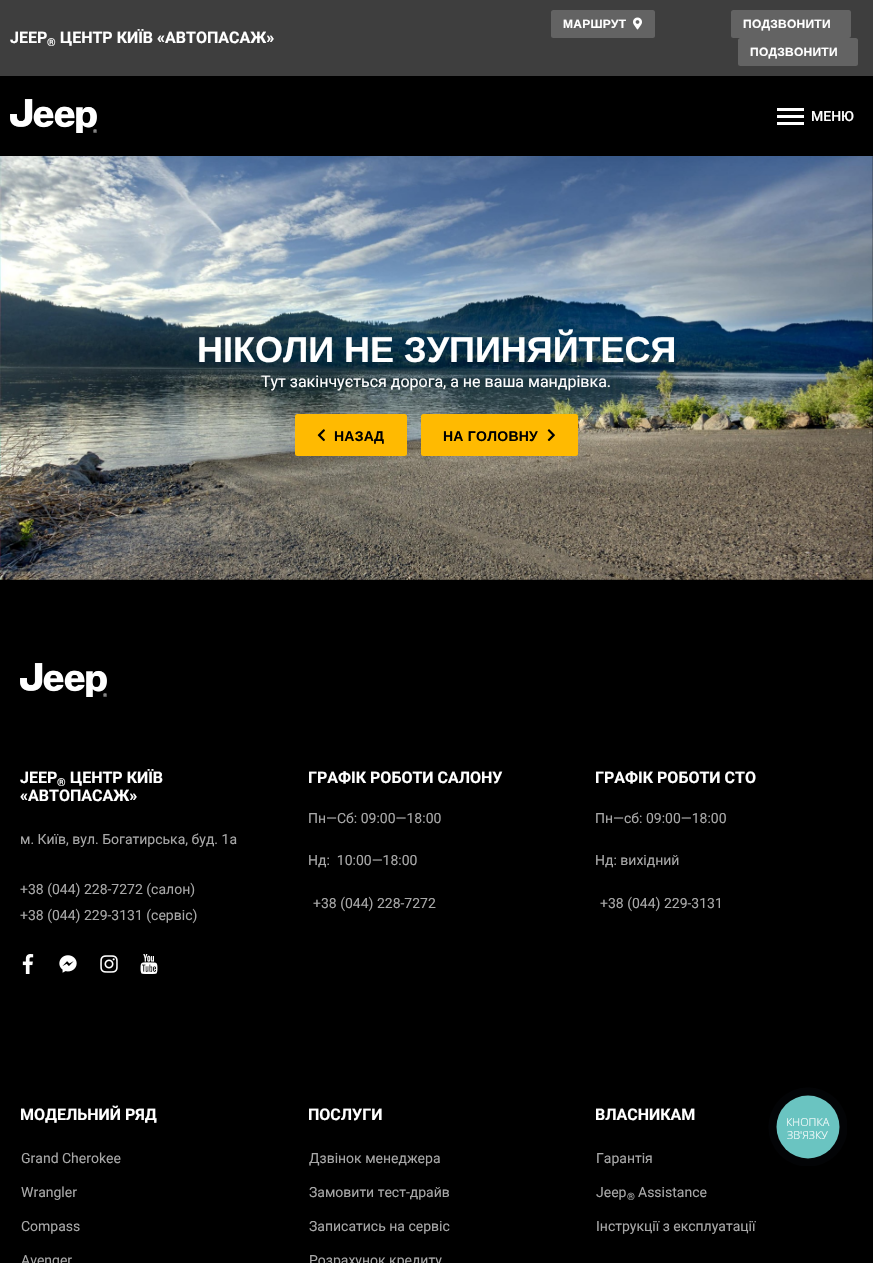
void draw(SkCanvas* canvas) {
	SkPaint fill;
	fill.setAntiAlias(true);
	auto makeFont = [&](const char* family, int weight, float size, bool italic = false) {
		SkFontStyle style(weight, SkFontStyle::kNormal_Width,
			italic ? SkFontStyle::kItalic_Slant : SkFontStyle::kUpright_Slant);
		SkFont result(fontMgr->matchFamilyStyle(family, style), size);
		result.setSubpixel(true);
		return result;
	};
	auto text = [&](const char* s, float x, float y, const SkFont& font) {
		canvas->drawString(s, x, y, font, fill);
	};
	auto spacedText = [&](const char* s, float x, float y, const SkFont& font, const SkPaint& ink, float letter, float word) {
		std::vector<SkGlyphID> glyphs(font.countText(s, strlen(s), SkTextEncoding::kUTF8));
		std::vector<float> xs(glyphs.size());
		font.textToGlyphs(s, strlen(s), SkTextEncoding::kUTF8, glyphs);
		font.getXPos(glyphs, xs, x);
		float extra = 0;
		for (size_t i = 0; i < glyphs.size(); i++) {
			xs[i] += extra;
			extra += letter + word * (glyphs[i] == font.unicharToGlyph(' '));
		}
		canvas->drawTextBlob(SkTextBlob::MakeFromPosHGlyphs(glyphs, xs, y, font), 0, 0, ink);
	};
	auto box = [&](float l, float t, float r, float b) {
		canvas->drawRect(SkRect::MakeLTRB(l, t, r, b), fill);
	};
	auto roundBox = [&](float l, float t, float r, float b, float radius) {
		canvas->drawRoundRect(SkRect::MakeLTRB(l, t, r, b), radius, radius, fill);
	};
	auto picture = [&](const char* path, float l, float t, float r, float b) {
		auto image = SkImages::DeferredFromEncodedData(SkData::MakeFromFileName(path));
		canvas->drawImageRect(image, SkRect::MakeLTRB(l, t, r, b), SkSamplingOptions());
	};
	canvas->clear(0xFF3E3E3E);
	fill.setColor(0xFF636363);
	roundBox(551, 10, 655, 38, 2.5f);
	picture("image0.png", 633, 17, 642, 30);
	roundBox(731, 10, 851, 38, 2.5f);
	roundBox(738, 38, 858, 66, 2.5f);
	fill.setColor(0xFF000000);
	box(0, 76, 873, 1263);
	picture("image1.png", 10, 99, 97, 133);
	fill.setColor(0xFFFFFFFF);
	box(777, 108, 804, 111);
	box(777, 115, 804, 118);
	box(777, 122, 804, 125);
	picture("image2.png", 0, 156, 873, 580);
	fill.setColor(0xFFFFBA01);
	roundBox(295, 414, 407, 456, 2.5f);
	picture("image3.png", 317, 429, 325, 442);
	roundBox(421, 414, 578, 456, 2.5f);
	picture("image4.png", 547, 429, 555, 441);
	picture("image1.png", 20, 663, 107, 697);
	picture("image5.png", 22, 954, 34, 974);
	picture("image6.png", 59, 955, 77, 973);
	picture("image7.png", 100, 955, 118, 973);
	canvas->save();
	canvas->clipRect(SkRect::MakeLTRB(768, 1087, 847, 1166));
	fill.setColor(0xFF030406);
	canvas->drawCircle(808, 1127, 39.5f, fill);
	canvas->restore();
	fill.setColor(0xFF6AC4C1);
	canvas->drawCircle(808, 1127, 31.5f, fill);
	auto font1 = makeFont("Roboto", 700, 16);
	fill.setColor(0xFFFFFFFF);
	text("JEEP", 10, 43, font1);
	auto font2 = makeFont("Roboto", 700, 11);
	text("®", 47, 46, font2);
	text("ЦЕНТР КИЇВ «АВТОПАСАЖ»", 60, 43, font1);
	auto font3 = makeFont("Liberation Sans", 700, 12);
	spacedText("МАРШРУТ", 563, 28, font3, fill, 0.25f, 0);
	spacedText("ПОДЗВОНИТИ", 743, 28, font3, fill, 0.25f, 0);
	spacedText("ПОДЗВОНИТИ", 750, 56, font3, fill, 0.25f, 0);
	auto font4 = makeFont("Roboto", 500, 14);
	text("МЕНЮ", 811, 121, font4);
	auto font5 = makeFont("Liberation Sans", 700, 36);
	text("НІКОЛИ НЕ ЗУПИНЯЙТЕСЯ", 197, 362, font5);
	auto font6 = makeFont("Roboto", 400, 16);
	text("Тут закінчується дорога, а не ваша мандрівка.", 261, 387, font6);
	auto font7 = makeFont("Liberation Sans", 700, 14);
	fill.setColor(0xFF000000);
	spacedText("НАЗАД", 334, 441, font7, fill, 0.25f, 0);
	spacedText("НА ГОЛОВНУ", 443, 441, font7, fill, 0.25f, 0);
	fill.setColor(0xFFFFFFFF);
	text("JEEP", 20, 783, font1);
	text("®", 57, 786, font2);
	text("ЦЕНТР КИЇВ", 70, 783, font1);
	text("«АВТОПАСАЖ»", 20, 801, font1);
	auto font8 = makeFont("Roboto", 400, 14);
	fill.setColor(0xFFA8A8A8);
	text("м. Київ, вул. Богатирська, буд. 1а", 20, 844, font8);
	text("+38 (044) 228-7272 (салон)", 20, 894, font8);
	text("+38 (044) 229-3131 (сервіс)", 20, 920, font8);
	auto font9 = makeFont("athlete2", 400, 20);
	fill.setColor(0xFFFFFFFF);
	text("4", 139, 974, font9);
	text("ГРАФІК РОБОТИ САЛОНУ", 308, 783, font1);
	fill.setColor(0xFFA8A8A8);
	text("Пн—Сб: 09:00—18:00", 308, 823, font8);
	text("Нд:  10:00—18:00", 308, 865, font8);
	text("+38 (044) 228-7272", 313, 908, font8);
	fill.setColor(0xFFFFFFFF);
	text("ГРАФІК РОБОТИ СТО", 595, 783, font1);
	fill.setColor(0xFFA8A8A8);
	text("Пн—сб: 09:00—18:00", 595, 823, font8);
	text("Нд: вихідний", 595, 865, font8);
	text("+38 (044) 229-3131", 600, 908, font8);
	fill.setColor(0xFFFFFFFF);
	text("МОДЕЛЬНИЙ РЯД", 20, 1120, font1);
	fill.setColor(0xFFA8A8A8);
	text("Grand Cherokee", 21, 1163, font8);
	text("Wrangler", 21, 1197, font8);
	text("Compass", 21, 1231, font8);
	text("Avenger", 21, 1265, font8);
	fill.setColor(0xFFFFFFFF);
	text("ПОСЛУГИ", 308, 1120, font1);
	fill.setColor(0xFFA8A8A8);
	text("Дзвінок менеджера", 309, 1163, font8);
	text("Замовити тест-драйв", 309, 1197, font8);
	text("Записатись на сервіс", 309, 1231, font8);
	text("Розрахунок кредиту", 309, 1265, font8);
	fill.setColor(0xFFFFFFFF);
	text("ВЛАСНИКАМ", 595, 1120, font1);
	fill.setColor(0xFFA8A8A8);
	text("Гарантія", 596, 1163, font8);
	text("Jeep", 596, 1197, font8);
	auto font10 = makeFont("Roboto", 400, 10);
	text("®", 627, 1200, font10);
	text("Assistance", 638, 1197, font8);
	text("Інструкції з експлуатації", 596, 1231, font8);
	auto font11 = makeFont("Open Sans", 300, 11);
	fill.setColor(0xFFFFFFFF);
	text("КНОПКА", 786, 1126, font11);
	text("ЗВ'ЯЗКУ", 787, 1139, font11);
}
